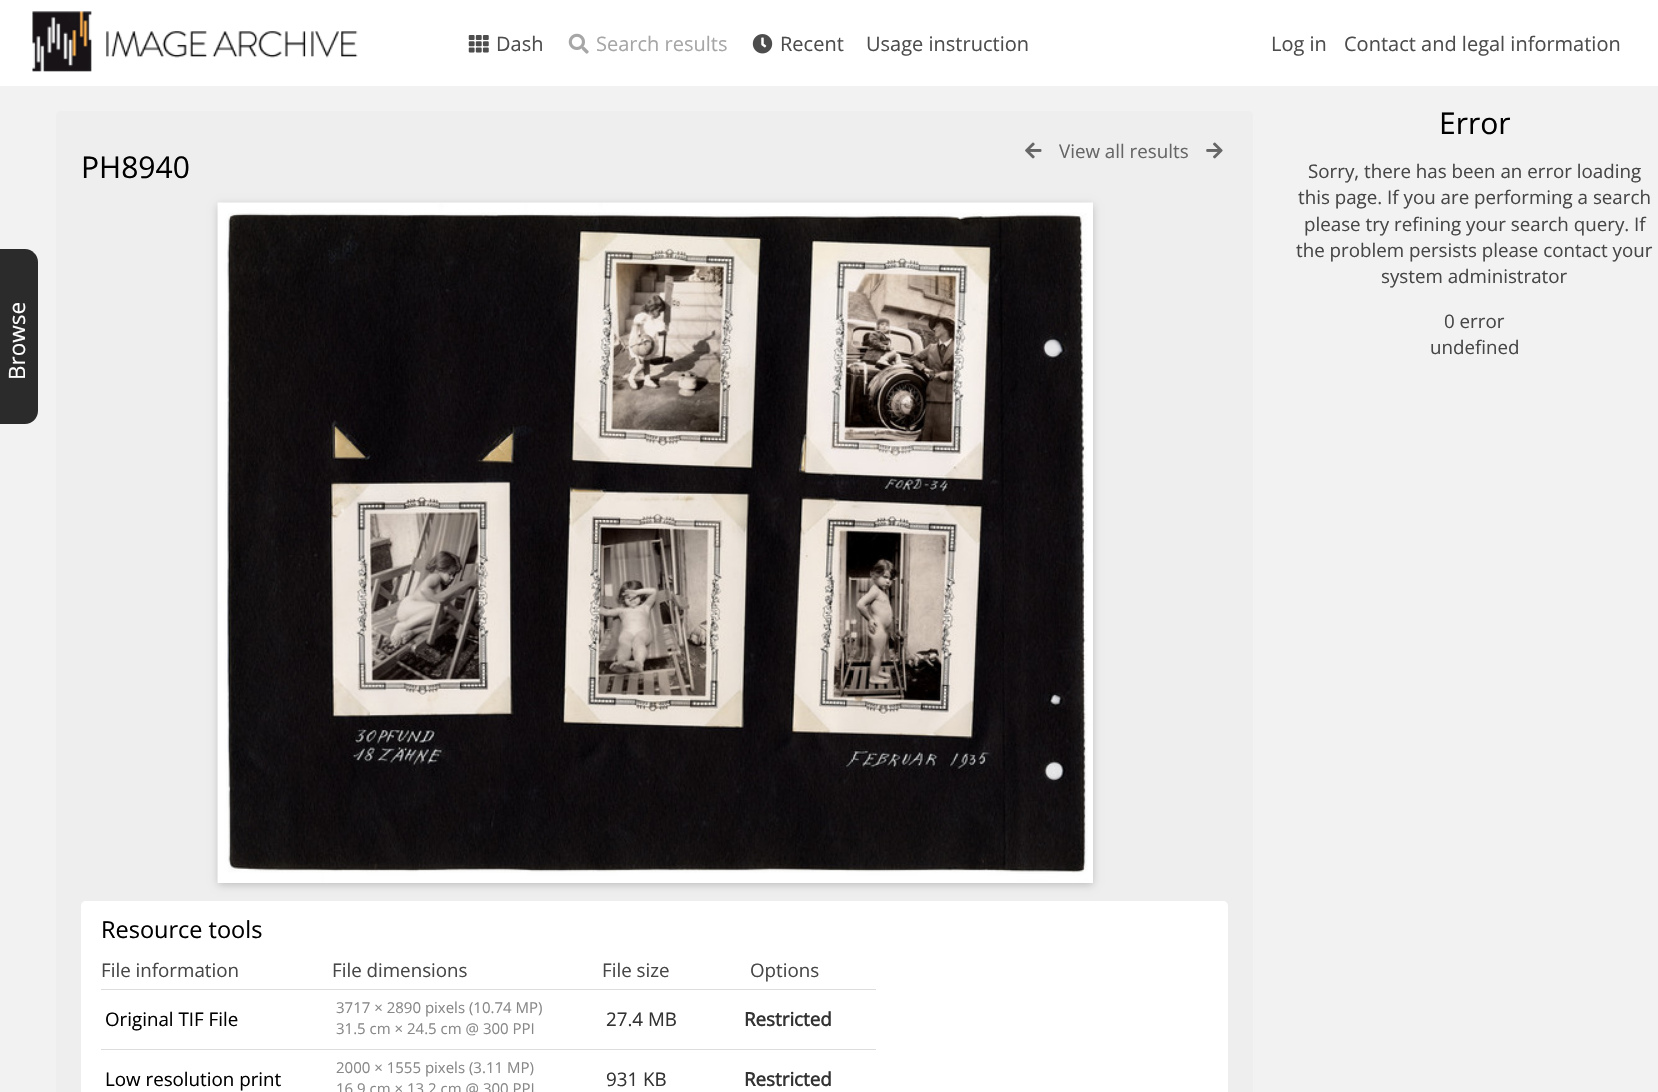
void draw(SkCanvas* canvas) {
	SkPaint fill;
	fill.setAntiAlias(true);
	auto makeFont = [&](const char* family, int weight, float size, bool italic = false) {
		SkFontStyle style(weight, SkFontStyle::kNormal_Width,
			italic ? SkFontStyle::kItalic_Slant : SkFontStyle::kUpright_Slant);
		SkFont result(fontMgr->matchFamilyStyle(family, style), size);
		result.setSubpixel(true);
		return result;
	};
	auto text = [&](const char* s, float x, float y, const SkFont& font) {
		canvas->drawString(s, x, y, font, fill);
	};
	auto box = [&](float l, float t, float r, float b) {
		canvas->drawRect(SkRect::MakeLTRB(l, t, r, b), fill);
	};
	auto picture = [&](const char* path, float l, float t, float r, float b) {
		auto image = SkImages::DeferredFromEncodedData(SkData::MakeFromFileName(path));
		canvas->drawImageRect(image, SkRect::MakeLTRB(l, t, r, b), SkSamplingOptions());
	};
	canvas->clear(0xFFF2F2F2);
	fill.setColor(0xFFFFFFFF);
	box(0, 0, 1658, 86);
	picture("image0.png", 32, 11, 358, 72);
	picture("image1.png", 468, 35, 489, 53);
	picture("image2.png", 568, 33, 589, 54);
	picture("image3.png", 752, 34, 773, 54);
	fill.setColor(0xFF2B2B2B);
	canvas->drawPath(SkPathBuilder().moveTo(0, 249).lineTo(25, 249).cubicTo(32, 249, 38, 255, 38, 262).lineTo(38, 411).cubicTo(38, 418, 32, 424, 25, 424).lineTo(0, 424).close().detach(), fill);
	fill.setColor(0xFFEEEEEE);
	canvas->drawPath(SkPathBuilder().moveTo(61, 111).lineTo(1248, 111).cubicTo(1251, 111, 1253, 113, 1253, 116).lineTo(1253, 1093).lineTo(56, 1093).lineTo(56, 116).cubicTo(56, 113, 58, 111, 61, 111).close().detach(), fill);
	picture("image4.png", 1025, 142, 1042, 159);
	picture("image5.png", 1206, 142, 1223, 159);
	fill.setColor(0x33000000);
	fill.setMaskFilter(SkMaskFilter::MakeBlur(kNormal_SkBlurStyle, 4));
	canvas->drawRect(SkRect::MakeLTRB(218, 205, 1093, 885), fill);
	fill.setMaskFilter(nullptr);
	picture("image6.png", 217, 202, 1093, 883);
	fill.setColor(0xFFFFFFFF);
	canvas->drawPath(SkPathBuilder().moveTo(86, 901).lineTo(1223, 901).cubicTo(1226, 901, 1228, 903, 1228, 906).lineTo(1228, 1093).lineTo(81, 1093).lineTo(81, 906).cubicTo(81, 903, 83, 901, 86, 901).close().detach(), fill);
	fill.setColor(0xFFDDDDDD);
	box(101, 989, 876, 990);
	box(101, 1049, 876, 1050);
	auto font1 = makeFont("Open Sans", 400, 20);
	fill.setColor(0xFF4D4D4D);
	text("Dash", 496, 51, font1);
	fill.setColor(0xFFA6A6A6);
	text("Search results", 596, 51, font1);
	fill.setColor(0xFF4D4D4D);
	text("Recent", 780, 51, font1);
	text("Usage instruction", 866, 51, font1);
	text("Log in", 1271, 51, font1);
	text("Contact and legal information", 1344, 51, font1);
	auto font2 = makeFont("Open Sans", 400, 22.5f);
	fill.setColor(0xFFFFFFFF);
	canvas->save();
	canvas->rotate(-90, 25, 380);
	text("Browse", 25, 380, font2);
	canvas->restore();
	auto font3 = makeFont("Open Sans", 400, 18.75f);
	fill.setColor(0xFF666666);
	text("View all results", 1059, 158, font3);
	auto font4 = makeFont("Open Sans", 400, 30);
	fill.setColor(0xFF000000);
	text("PH8940", 81, 178, font4);
	auto font5 = makeFont("Open Sans", 400, 23.5f);
	text("Resource tools", 101, 938, font5);
	fill.setColor(0xFF474747);
	text("File information", 101, 977, font3);
	text("File dimensions", 332, 977, font3);
	text("File size", 602, 977, font3);
	text("Options", 750, 977, font3);
	fill.setColor(0xFF000000);
	text("Original TIF File", 105, 1026, font3);
	auto font6 = makeFont("Open Sans", 400, 15);
	fill.setColor(0xFF888888);
	text("3717 × 2890 pixels (10.74 MP)", 336, 1013, font6);
	text("31.5 cm × 24.5 cm @ 300 PPI", 336, 1034, font6);
	fill.setColor(0xFF333333);
	text("27.4 MB", 606, 1026, font3);
	auto font7 = makeFont("Open Sans", 700, 18.75f);
	text("Restricted", 744, 1026, font7);
	fill.setColor(0xFF000000);
	text("Low resolution print", 105, 1086, font3);
	fill.setColor(0xFF888888);
	text("2000 × 1555 pixels (3.11 MP)", 336, 1073, font6);
	text("16.9 cm × 13.2 cm @ 300 PPI", 336, 1094, font6);
	fill.setColor(0xFF333333);
	text("931 KB", 606, 1086, font3);
	text("Restricted", 744, 1086, font7);
	fill.setColor(0xFF000000);
	text("Error", 1439, 134, font4);
	fill.setColor(0xFF474747);
	text("Sorry, there has been an error loading", 1308, 178, font3);
	text("this page. If you are performing a search", 1298, 204, font3);
	text("please try refining your search query. If", 1304, 231, font3);
	text("the problem persists please contact your", 1296, 257, font3);
	text("system administrator", 1381, 283, font3);
	text("0 error", 1444, 328, font3);
	text("undefined", 1430, 354, font3);
}
